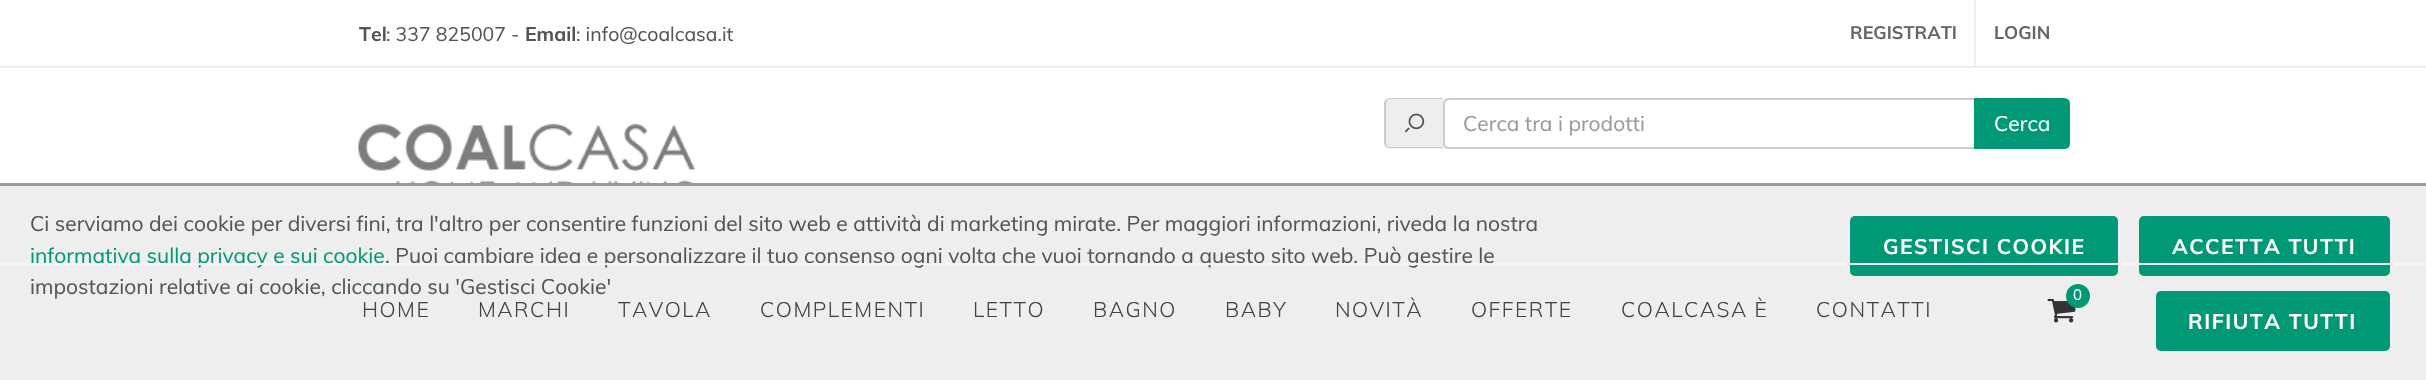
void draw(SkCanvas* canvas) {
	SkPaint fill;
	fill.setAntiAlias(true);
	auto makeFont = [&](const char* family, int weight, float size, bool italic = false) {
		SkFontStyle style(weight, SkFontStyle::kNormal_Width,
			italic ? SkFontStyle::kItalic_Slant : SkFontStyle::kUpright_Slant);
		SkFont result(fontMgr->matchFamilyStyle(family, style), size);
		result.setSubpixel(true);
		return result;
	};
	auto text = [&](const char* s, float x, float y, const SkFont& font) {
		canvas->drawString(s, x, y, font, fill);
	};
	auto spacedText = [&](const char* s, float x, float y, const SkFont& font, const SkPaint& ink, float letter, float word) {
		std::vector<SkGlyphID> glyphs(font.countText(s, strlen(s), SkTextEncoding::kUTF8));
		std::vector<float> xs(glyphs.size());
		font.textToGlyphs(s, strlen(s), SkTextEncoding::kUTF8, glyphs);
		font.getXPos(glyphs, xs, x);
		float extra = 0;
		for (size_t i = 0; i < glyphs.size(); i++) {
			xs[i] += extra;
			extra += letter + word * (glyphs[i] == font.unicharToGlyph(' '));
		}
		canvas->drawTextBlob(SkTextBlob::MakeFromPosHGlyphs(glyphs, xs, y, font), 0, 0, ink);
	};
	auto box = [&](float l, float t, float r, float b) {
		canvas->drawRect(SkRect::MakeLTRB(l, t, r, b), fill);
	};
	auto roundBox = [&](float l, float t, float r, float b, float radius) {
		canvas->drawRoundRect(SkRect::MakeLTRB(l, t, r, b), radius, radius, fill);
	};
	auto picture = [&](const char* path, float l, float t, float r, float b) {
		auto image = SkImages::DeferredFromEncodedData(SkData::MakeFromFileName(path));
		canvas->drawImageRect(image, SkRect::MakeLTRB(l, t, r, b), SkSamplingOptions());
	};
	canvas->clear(0xFFFFFFFF);
	fill.setColor(0xFFEEEEEE);
	box(0, 66, 2426, 68);
	box(1974, 0, 1976, 66);
	picture("image0.png", 358, 123, 695, 183);
	canvas->drawPath(SkPathBuilder().moveTo(1391, 98).lineTo(1443, 98).lineTo(1443, 149).lineTo(1391, 149).cubicTo(1387.5f, 149, 1385, 146.5f, 1385, 143).lineTo(1385, 104).cubicTo(1385, 100.5f, 1387.5f, 98, 1391, 98).close().detach(), fill);
	fill.setColor(0xFFCCCCCC);
	canvas->drawPath(SkPathBuilder(SkPathFillType::kEvenOdd).moveTo(1390, 98).lineTo(1443, 98).lineTo(1443, 148).lineTo(1390, 148).cubicTo(1387, 148, 1384, 146, 1384, 142).lineTo(1384, 104).cubicTo(1384, 100, 1387, 98, 1390, 98).close().moveTo(1390, 99).lineTo(1443, 99).lineTo(1443, 147).lineTo(1390, 147).cubicTo(1388, 147, 1386, 145, 1386, 142).lineTo(1386, 104).cubicTo(1386, 101, 1388, 99, 1390, 99).close().detach(), fill);
	picture("image1.png", 1404, 113, 1425, 133);
	fill.setStyle(SkPaint::kStroke_Style);
	fill.setStrokeWidth(2);
	canvas->drawPath(SkPathBuilder().moveTo(1449, 99).lineTo(1975, 99).lineTo(1975, 148).lineTo(1449, 148).cubicTo(1446, 148, 1444, 146, 1444, 143).lineTo(1444, 104).cubicTo(1444, 101, 1446, 99, 1449, 99).close().detach(), fill);
	fill.setStyle(SkPaint::kFill_Style);
	fill.setColor(0xFF019875);
	canvas->drawPath(SkPathBuilder().moveTo(1975, 99).lineTo(2064, 99).cubicTo(2067, 99, 2069, 101, 2069, 104).lineTo(2069, 143).cubicTo(2069, 146, 2067, 148, 2064, 148).lineTo(1975, 148).close().detach(), fill);
	fill.setStyle(SkPaint::kStroke_Style);
	canvas->drawPath(SkPathBuilder().moveTo(1975, 99).lineTo(2064, 99).cubicTo(2067, 99, 2069, 101, 2069, 104).lineTo(2069, 143).cubicTo(2069, 146, 2067, 148, 2064, 148).lineTo(1975, 148).close().detach(), fill);
	fill.setStyle(SkPaint::kFill_Style);
	fill.setColor(0xFFEEEEEE);
	box(0, 186, 2426, 380);
	picture("image2.png", 2047, 298, 2076, 323);
	fill.setColor(0xFF019875);
	canvas->drawCircle(2078, 296, 12, fill);
	fill.setColor(0xFF999999);
	box(0, 183, 2426, 186);
	fill.setColor(0xFF019875);
	roundBox(1850, 216, 2118, 276, 5);
	roundBox(2139, 216, 2390, 276, 5);
	roundBox(2156, 291, 2390, 351, 5);
	auto font1 = makeFont("Muli", 700, 19.5f);
	fill.setColor(0xFF555555);
	text("Tel", 359, 41, font1);
	auto font2 = makeFont("Muli", 400, 19.5f);
	text(": 337 825007 -", 386, 41, font2);
	text("Email", 525, 41, font1);
	text(": info@coalcasa.it", 576, 41, font2);
	auto font3 = makeFont("Muli", 700, 18);
	fill.setColor(0xFF666666);
	text("REGISTRATI", 1850, 39, font3);
	text("LOGIN", 1994, 39, font3);
	auto font4 = makeFont("Muli", 400, 21);
	fill.setColor(0xFF999999);
	text("Cerca tra i prodotti", 1463, 131, font4);
	fill.setColor(0xFFFFFFFF);
	text("Cerca", 1994, 131, font4);
	auto font5 = makeFont("Muli", 400, 15);
	text("0", 2073, 300, font5);
	auto font6 = makeFont("Muli", 300, 21);
	fill.setColor(0xFF444444);
	spacedText("HOME", 362, 317, font6, fill, 1.5f, 0);
	spacedText("MARCHI", 478, 317, font6, fill, 1.5f, 0);
	spacedText("TAVOLA", 618, 317, font6, fill, 1.5f, 0);
	spacedText("COMPLEMENTI", 760, 317, font6, fill, 1.5f, 0);
	spacedText("LETTO", 973, 317, font6, fill, 1.5f, 0);
	spacedText("BAGNO", 1093, 317, font6, fill, 1.5f, 0);
	spacedText("BABY", 1225, 317, font6, fill, 1.5f, 0);
	spacedText("NOVITÀ", 1335, 317, font6, fill, 1.5f, 0);
	spacedText("OFFERTE", 1471, 317, font6, fill, 1.5f, 0);
	spacedText("COALCASA È", 1621, 317, font6, fill, 1.5f, 0);
	spacedText("CONTATTI", 1816, 317, font6, fill, 1.5f, 0);
	fill.setColor(0xFF555555);
	text("Ci serviamo dei cookie per diversi fini, tra l'altro per consentire funzioni del sito web e attività di marketing mirate. Per maggiori informazioni, riveda la nostra", 30, 231, font4);
	fill.setColor(0xFF019875);
	text("informativa sulla privacy e sui cookie", 30, 263, font4);
	fill.setColor(0xFF555555);
	text(". Puoi cambiare idea e personalizzare il tuo consenso ogni volta che vuoi tornando a questo sito web. Può gestire le", 385, 263, font4);
	fill.setColor(0xFFF5F5F5);
	box(0, 263, 2426, 265);
	fill.setColor(0xFF555555);
	text("impostazioni relative ai cookie, cliccando su 'Gestisci Cookie'", 30, 294, font4);
	auto font7 = makeFont("Muli", 700, 21);
	fill.setColor(0xFFFFFFFF);
	spacedText("GESTISCI COOKIE", 1883, 254, font7, fill, 1.5f, 0);
	spacedText("ACCETTA TUTTI", 2172, 254, font7, fill, 1.5f, 0);
	spacedText("RIFIUTA TUTTI", 2188, 329, font7, fill, 1.5f, 0);
}
